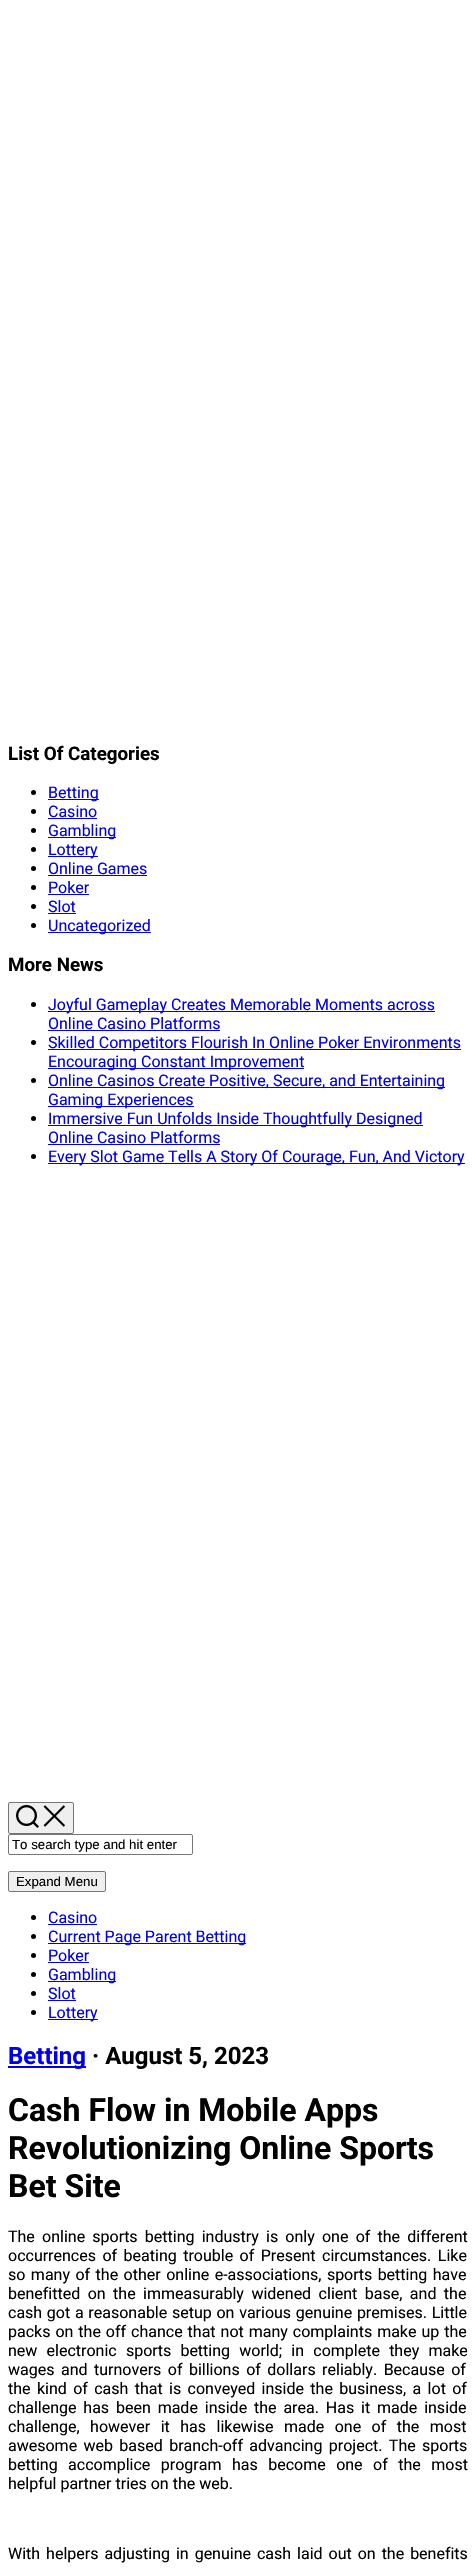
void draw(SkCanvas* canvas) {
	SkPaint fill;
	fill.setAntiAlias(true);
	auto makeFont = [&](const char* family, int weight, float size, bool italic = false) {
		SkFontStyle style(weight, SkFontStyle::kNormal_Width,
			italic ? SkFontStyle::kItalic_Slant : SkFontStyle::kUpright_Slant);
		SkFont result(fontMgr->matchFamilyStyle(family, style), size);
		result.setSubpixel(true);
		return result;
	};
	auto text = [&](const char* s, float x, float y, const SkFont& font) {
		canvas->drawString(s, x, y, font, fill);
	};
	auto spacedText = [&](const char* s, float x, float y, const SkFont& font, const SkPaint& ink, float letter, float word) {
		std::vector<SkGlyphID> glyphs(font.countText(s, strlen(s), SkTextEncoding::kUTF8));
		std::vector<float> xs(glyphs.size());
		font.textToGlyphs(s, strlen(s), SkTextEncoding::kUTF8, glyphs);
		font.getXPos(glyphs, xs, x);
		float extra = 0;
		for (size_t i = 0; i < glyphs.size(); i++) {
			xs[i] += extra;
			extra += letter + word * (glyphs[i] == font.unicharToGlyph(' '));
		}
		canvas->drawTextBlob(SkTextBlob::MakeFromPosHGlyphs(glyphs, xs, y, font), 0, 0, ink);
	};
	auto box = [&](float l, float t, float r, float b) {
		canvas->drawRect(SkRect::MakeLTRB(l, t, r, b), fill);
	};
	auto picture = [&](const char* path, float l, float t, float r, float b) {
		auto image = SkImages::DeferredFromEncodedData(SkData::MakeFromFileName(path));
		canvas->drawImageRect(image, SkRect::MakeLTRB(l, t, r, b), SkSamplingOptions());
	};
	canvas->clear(0xFFFFFFFF);
	fill.setColor(0xFF000000);
	canvas->drawCircle(33.5f, 792.5f, 2.5f, fill);
	fill.setColor(0xFF0000EE);
	box(48, 799, 99, 800);
	fill.setColor(0xFF000000);
	canvas->drawCircle(33.5f, 811.5f, 2.5f, fill);
	fill.setColor(0xFF0000EE);
	box(48, 818, 97, 819);
	fill.setColor(0xFF000000);
	canvas->drawCircle(33.5f, 830.5f, 2.5f, fill);
	fill.setColor(0xFF0000EE);
	box(48, 837, 116, 838);
	fill.setColor(0xFF000000);
	canvas->drawCircle(33.5f, 849.5f, 2.5f, fill);
	fill.setColor(0xFF0000EE);
	box(48, 856, 98, 857);
	fill.setColor(0xFF000000);
	canvas->drawCircle(33.5f, 868.5f, 2.5f, fill);
	fill.setColor(0xFF0000EE);
	box(48, 875, 147, 876);
	fill.setColor(0xFF000000);
	canvas->drawCircle(33.5f, 887.5f, 2.5f, fill);
	fill.setColor(0xFF0000EE);
	box(48, 894, 89, 895);
	fill.setColor(0xFF000000);
	canvas->drawCircle(33.5f, 906.5f, 2.5f, fill);
	fill.setColor(0xFF0000EE);
	box(48, 913, 76, 914);
	fill.setColor(0xFF000000);
	canvas->drawCircle(33.5f, 925.5f, 2.5f, fill);
	fill.setColor(0xFF0000EE);
	box(48, 932, 151, 933);
	fill.setColor(0xFF000000);
	canvas->drawCircle(33.5f, 1004.5f, 2.5f, fill);
	fill.setColor(0xFF0000EE);
	box(48, 1011, 435, 1012);
	box(48, 1030, 220, 1031);
	fill.setColor(0xFF000000);
	canvas->drawCircle(33.5f, 1042.5f, 2.5f, fill);
	fill.setColor(0xFF0000EE);
	box(48, 1049, 461, 1050);
	box(48, 1068, 304, 1069);
	fill.setColor(0xFF000000);
	canvas->drawCircle(33.5f, 1080.5f, 2.5f, fill);
	fill.setColor(0xFF0000EE);
	box(48, 1087, 445, 1088);
	box(48, 1106, 194, 1107);
	fill.setColor(0xFF000000);
	canvas->drawCircle(33.5f, 1118.5f, 2.5f, fill);
	fill.setColor(0xFF0000EE);
	box(48, 1125, 423, 1126);
	box(48, 1144, 220, 1145);
	fill.setColor(0xFF000000);
	canvas->drawCircle(33.5f, 1156.5f, 2.5f, fill);
	fill.setColor(0xFF0000EE);
	box(48, 1163, 465, 1164);
	fill.setColor(0xFFEFEFEF);
	canvas->drawRoundRect(SkRect::MakeLTRB(8.5f, 1802.5f, 73.5f, 1833.5f), 1.5f, 1.5f, fill);
	fill.setStyle(SkPaint::kStroke_Style);
	fill.setStrokeWidth(1);
	fill.setColor(0xFF767676);
	canvas->drawRoundRect(SkRect::MakeLTRB(8.5f, 1802.5f, 73.5f, 1833.5f), 1.5f, 1.5f, fill);
	picture("image0.png", 16, 1805, 39, 1828);
	picture("image1.png", 43, 1805, 65, 1827);
	canvas->drawRoundRect(SkRect::MakeLTRB(8.5f, 1834.5f, 192.5f, 1854.5f), 1.5f, 1.5f, fill);
	fill.setStyle(SkPaint::kFill_Style);
	fill.setColor(0xFFEFEFEF);
	canvas->drawRoundRect(SkRect::MakeLTRB(8.5f, 1871.5f, 105.5f, 1891.5f), 1.5f, 1.5f, fill);
	fill.setStyle(SkPaint::kStroke_Style);
	fill.setColor(0xFF767676);
	canvas->drawRoundRect(SkRect::MakeLTRB(8.5f, 1871.5f, 105.5f, 1891.5f), 1.5f, 1.5f, fill);
	fill.setStyle(SkPaint::kFill_Style);
	fill.setColor(0xFF000000);
	canvas->drawCircle(33.5f, 1917.5f, 2.5f, fill);
	fill.setColor(0xFF0000EE);
	box(48, 1924, 97, 1925);
	fill.setColor(0xFF000000);
	canvas->drawCircle(33.5f, 1936.5f, 2.5f, fill);
	fill.setColor(0xFF0000EE);
	box(48, 1943, 246, 1944);
	fill.setColor(0xFF000000);
	canvas->drawCircle(33.5f, 1955.5f, 2.5f, fill);
	fill.setColor(0xFF0000EE);
	box(48, 1962, 89, 1963);
	fill.setColor(0xFF000000);
	canvas->drawCircle(33.5f, 1974.5f, 2.5f, fill);
	fill.setColor(0xFF0000EE);
	box(48, 1981, 116, 1982);
	fill.setColor(0xFF000000);
	canvas->drawCircle(33.5f, 1993.5f, 2.5f, fill);
	fill.setColor(0xFF0000EE);
	box(48, 2000, 76, 2001);
	fill.setColor(0xFF000000);
	canvas->drawCircle(33.5f, 2012.5f, 2.5f, fill);
	fill.setColor(0xFF0000EE);
	box(48, 2019, 98, 2020);
	box(8, 2066, 86, 2068);
	auto font1 = makeFont("Roboto", 700, 18.75f);
	fill.setColor(0xFF000000);
	text("List Of Categories", 8, 760, font1);
	auto font2 = makeFont("Roboto", 400, 16);
	fill.setColor(0xFF0000EE);
	text("Betting", 48, 798, font2);
	text("Casino", 48, 817, font2);
	text("Gambling", 48, 836, font2);
	text("Lottery", 48, 855, font2);
	text("Online Games", 48, 874, font2);
	text("Poker", 48, 893, font2);
	text("Slot", 48, 912, font2);
	text("Uncategorized", 48, 931, font2);
	fill.setColor(0xFF000000);
	text("More News", 8, 971, font1);
	fill.setColor(0xFF0000EE);
	text("Joyful Gameplay Creates Memorable Moments across", 48, 1010, font2);
	text("Online Casino Platforms", 48, 1029, font2);
	text("Skilled Competitors Flourish In Online Poker Environments", 48, 1048, font2);
	text("Encouraging Constant Improvement", 48, 1067, font2);
	text("Online Casinos Create Positive, Secure, and Entertaining", 48, 1086, font2);
	text("Gaming Experiences", 48, 1105, font2);
	text("Immersive Fun Unfolds Inside Thoughtfully Designed", 48, 1124, font2);
	text("Online Casino Platforms", 48, 1143, font2);
	text("Every Slot Game Tells A Story Of Courage, Fun, And Victory", 48, 1162, font2);
	auto font3 = makeFont("Liberation Sans", 400, 13.25f);
	fill.setColor(0xFF000000);
	text("To search type and hit enter", 12, 1849, font3);
	text("Expand Menu", 16, 1886, font3);
	fill.setColor(0xFF0000EE);
	text("Casino", 48, 1923, font2);
	text("Current Page Parent Betting", 48, 1942, font2);
	text("Poker", 48, 1961, font2);
	text("Gambling", 48, 1980, font2);
	text("Slot", 48, 1999, font2);
	text("Lottery", 48, 2018, font2);
	auto font4 = makeFont("Roboto", 700, 24);
	text("Betting", 8, 2064, font4);
	fill.setColor(0xFF000000);
	text("· August 5, 2023", 92, 2064, font4);
	auto font5 = makeFont("Roboto", 700, 32);
	text("Cash Flow in Mobile Apps", 8, 2121, font5);
	text("Revolutionizing Online Sports", 8, 2159, font5);
	text("Bet Site", 8, 2197, font5);
	spacedText("The online sports betting industry is only one of the different", 8, 2242, font2, fill, 0, 3.25f);
	spacedText("occurrences of beating trouble of Present circumstances. Like", 8, 2261, font2, fill, 0, 2.5f);
	spacedText("so many of the other online e-associations, sports betting have", 8, 2280, font2, fill, 0, 1.5f);
	spacedText("benefitted on the immeasurably widened client base, and the", 8, 2299, font2, fill, 0, 3.5f);
	spacedText("cash got a reasonable setup on various genuine premises. Little", 8, 2318, font2, fill, 0, 0.75f);
	spacedText("packs on the off chance that not many complaints make up the", 8, 2337, font2, fill, 0, 1);
	spacedText("new electronic sports betting world; in complete they make", 8, 2356, font2, fill, 0, 5.25f);
	spacedText("wages and turnovers of billions of dollars reliably. Because of", 8, 2375, font2, fill, 0, 2.5f);
	spacedText("the kind of cash that is conveyed inside the business, a lot of", 8, 2394, font2, fill, 0, 2.4f);
	spacedText("challenge has been made inside the area. Has it made inside", 8, 2413, font2, fill, 0, 2.9f);
	spacedText("challenge, however it has likewise made one of the most", 8, 2432, font2, fill, 0, 6.5f);
	spacedText("awesome web based branch-off advancing project. The sports", 8, 2451, font2, fill, 0, 2.4f);
	spacedText("betting accomplice program has become one of the most", 8, 2470, font2, fill, 0, 6.5f);
	text("helpful partner tries on the web.", 8, 2489, font2);
	spacedText("With helpers adjusting in genuine cash laid out on the benefits", 8, 2559, font2, fill, 0, 2);
}
